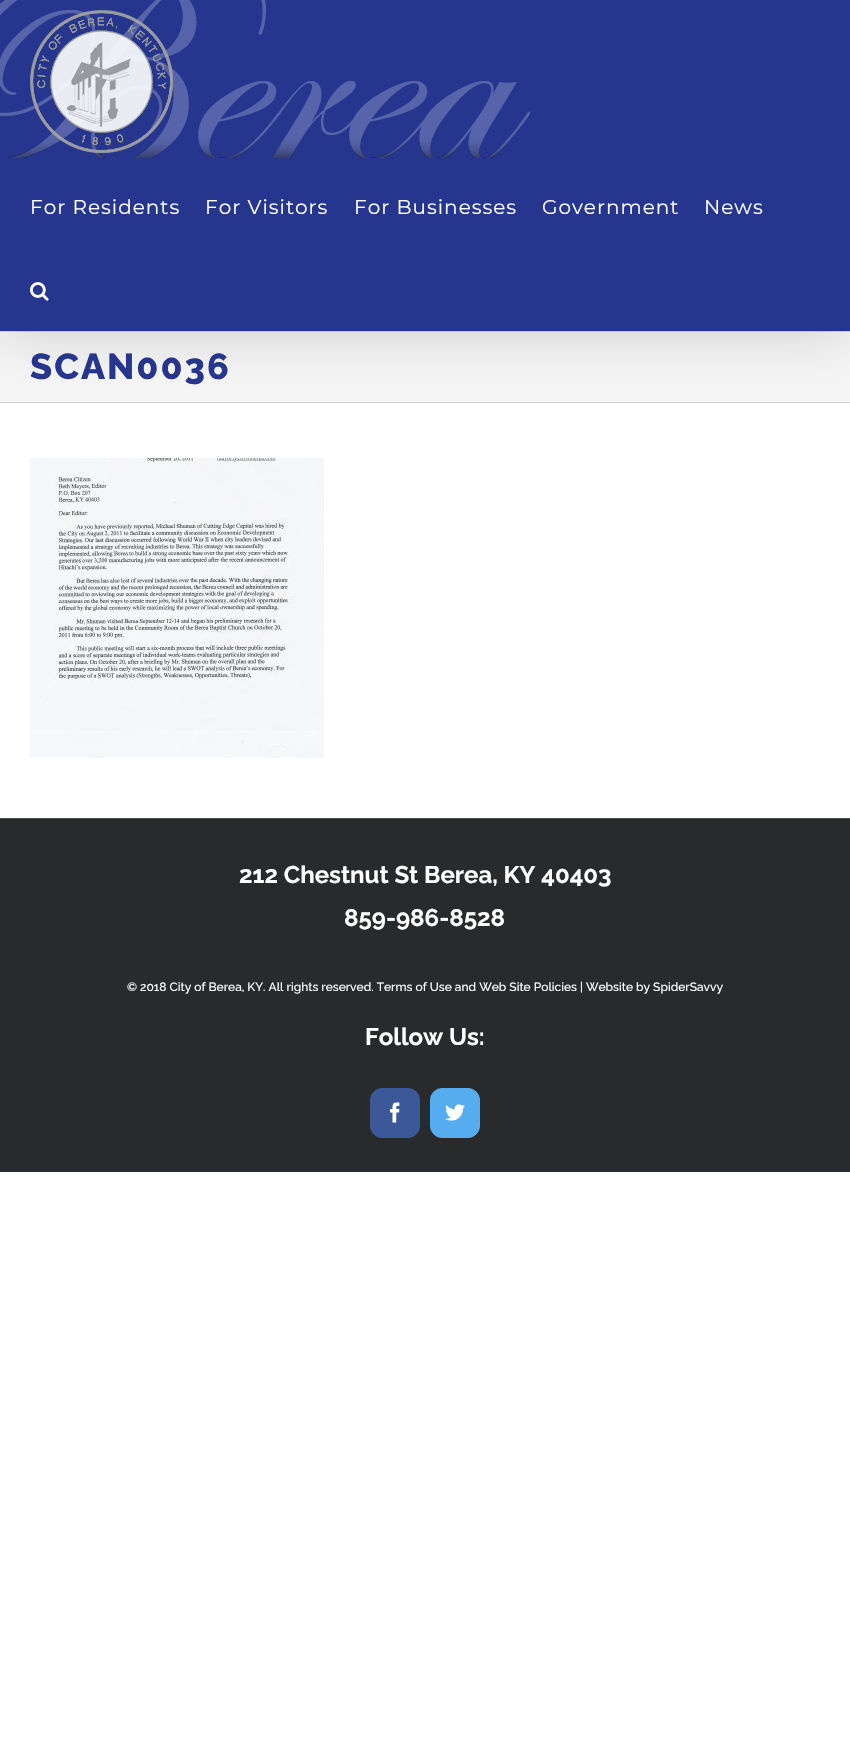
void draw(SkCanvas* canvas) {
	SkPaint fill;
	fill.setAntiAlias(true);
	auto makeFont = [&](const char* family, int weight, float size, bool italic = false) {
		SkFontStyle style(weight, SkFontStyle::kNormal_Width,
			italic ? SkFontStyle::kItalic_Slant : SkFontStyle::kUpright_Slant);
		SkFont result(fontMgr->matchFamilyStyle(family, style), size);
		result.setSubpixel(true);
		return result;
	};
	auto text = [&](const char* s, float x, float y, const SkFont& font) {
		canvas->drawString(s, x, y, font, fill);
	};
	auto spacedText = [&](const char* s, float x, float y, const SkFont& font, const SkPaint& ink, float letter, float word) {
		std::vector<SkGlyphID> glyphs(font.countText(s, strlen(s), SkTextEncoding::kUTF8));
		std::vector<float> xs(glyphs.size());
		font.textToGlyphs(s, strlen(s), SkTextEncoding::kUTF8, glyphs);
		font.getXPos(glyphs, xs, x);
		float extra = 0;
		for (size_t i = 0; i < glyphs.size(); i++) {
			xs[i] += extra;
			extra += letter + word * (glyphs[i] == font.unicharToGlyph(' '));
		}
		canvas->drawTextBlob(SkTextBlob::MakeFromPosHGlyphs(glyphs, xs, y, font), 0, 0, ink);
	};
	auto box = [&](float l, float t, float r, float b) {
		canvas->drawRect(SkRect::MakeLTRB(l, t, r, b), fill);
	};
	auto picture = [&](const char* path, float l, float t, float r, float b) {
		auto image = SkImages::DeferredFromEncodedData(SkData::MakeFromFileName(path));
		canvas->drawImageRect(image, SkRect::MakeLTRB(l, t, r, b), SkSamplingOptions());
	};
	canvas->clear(0xFFFFFFFF);
	fill.setColor(0xFFF6F6F6);
	box(0, 332, 850, 402);
	fill.setColor(0xFFD2D3D4);
	box(0, 331, 850, 332);
	box(0, 402, 850, 403);
	fill.setColor(0x24000000);
	fill.setMaskFilter(SkMaskFilter::MakeBlur(kNormal_SkBlurStyle, 25));
	canvas->drawRect(SkRect::MakeLTRB(2, 12, 848, 339), fill);
	fill.setMaskFilter(nullptr);
	fill.setColor(0xFF26368F);
	box(0, 0, 850, 331);
	picture("image0.png", 0, 0, 530, 158);
	picture("image1.png", 30, 10, 173, 153);
	picture("image2.png", 30, 282, 49, 301);
	picture("image3.png", 30, 458, 324, 758);
	fill.setColor(0xFF282A2B);
	box(0, 819, 850, 1172);
	fill.setColor(0xFF4B4C4D);
	box(0, 818, 850, 819);
	fill.setColor(0xFF3B5998);
	canvas->drawRoundRect(SkRect::MakeLTRB(370.5f, 1088.5f, 419.5f, 1137.5f), 11.5f, 11.5f, fill);
	fill.setStyle(SkPaint::kStroke_Style);
	fill.setStrokeWidth(1);
	canvas->drawRoundRect(SkRect::MakeLTRB(370.5f, 1088.5f, 419.5f, 1137.5f), 11.5f, 11.5f, fill);
	picture("image4.png", 390, 1102, 400, 1123);
	fill.setStyle(SkPaint::kFill_Style);
	fill.setColor(0xFF55ACEE);
	canvas->drawRoundRect(SkRect::MakeLTRB(430.5f, 1088.5f, 479.5f, 1137.5f), 11.5f, 11.5f, fill);
	fill.setStyle(SkPaint::kStroke_Style);
	canvas->drawRoundRect(SkRect::MakeLTRB(430.5f, 1088.5f, 479.5f, 1137.5f), 11.5f, 11.5f, fill);
	picture("image5.png", 445, 1104, 465, 1121);
	auto font1 = makeFont("Montserrat", 100, 20);
	fill.setStyle(SkPaint::kFill_Style);
	fill.setColor(0xFFFFFFFF);
	spacedText("For Residents", 30, 214, font1, fill, 1, 0);
	spacedText("For Visitors", 205, 214, font1, fill, 1, 0);
	spacedText("For Businesses", 354, 214, font1, fill, 1, 0);
	spacedText("Government", 542, 214, font1, fill, 1, 0);
	spacedText("News", 704, 214, font1, fill, 1, 0);
	auto font2 = makeFont("Raleway", 800, 36);
	fill.setColor(0xFF26368F);
	spacedText("SCAN0036", 30, 379, font2, fill, 2, 0);
	auto font3 = makeFont("Raleway", 700, 24);
	fill.setColor(0xFFFFFFFF);
	text("212 Chestnut St Berea, KY 40403", 239, 883, font3);
	text("859-986-8528", 344, 926, font3);
	auto font4 = makeFont("Raleway", 500, 12);
	text("© 2018 City of Berea, KY. All rights reserved. Terms of Use and Web Site Policies | Website by SpiderSavvy", 127, 991, font4);
	text("Follow Us:", 365, 1045, font3);
}
